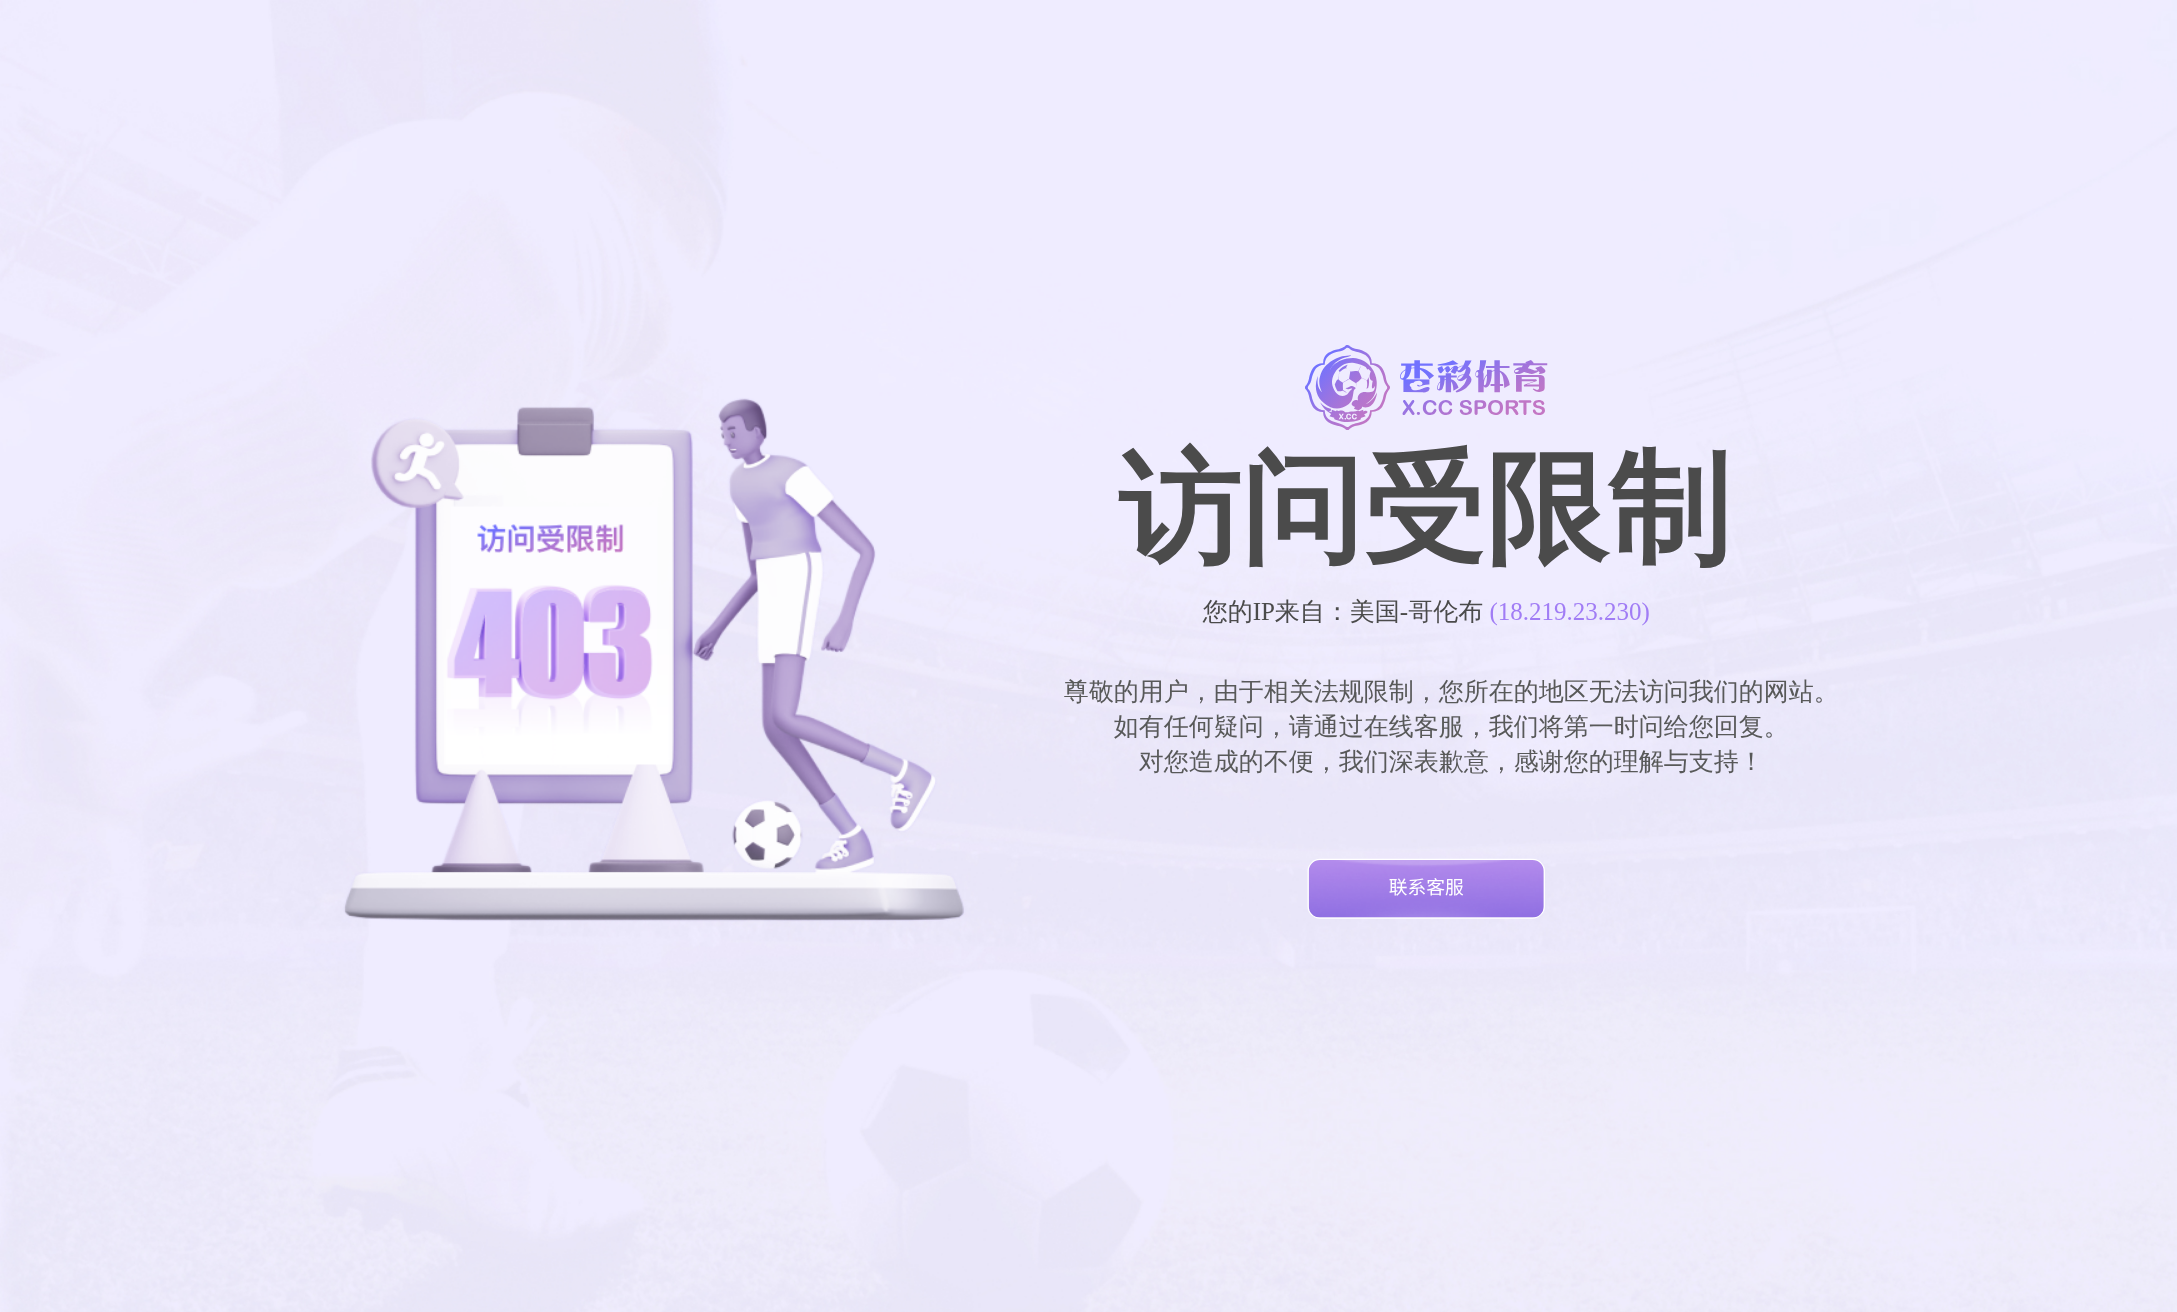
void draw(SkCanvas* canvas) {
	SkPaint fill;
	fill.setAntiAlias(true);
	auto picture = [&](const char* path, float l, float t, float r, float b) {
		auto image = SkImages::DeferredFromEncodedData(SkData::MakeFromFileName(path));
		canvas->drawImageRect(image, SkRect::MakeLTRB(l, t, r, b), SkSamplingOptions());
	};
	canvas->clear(0xFFFFFFFF);
	picture("image0.png", 0, 0, 2177, 1312);
}
